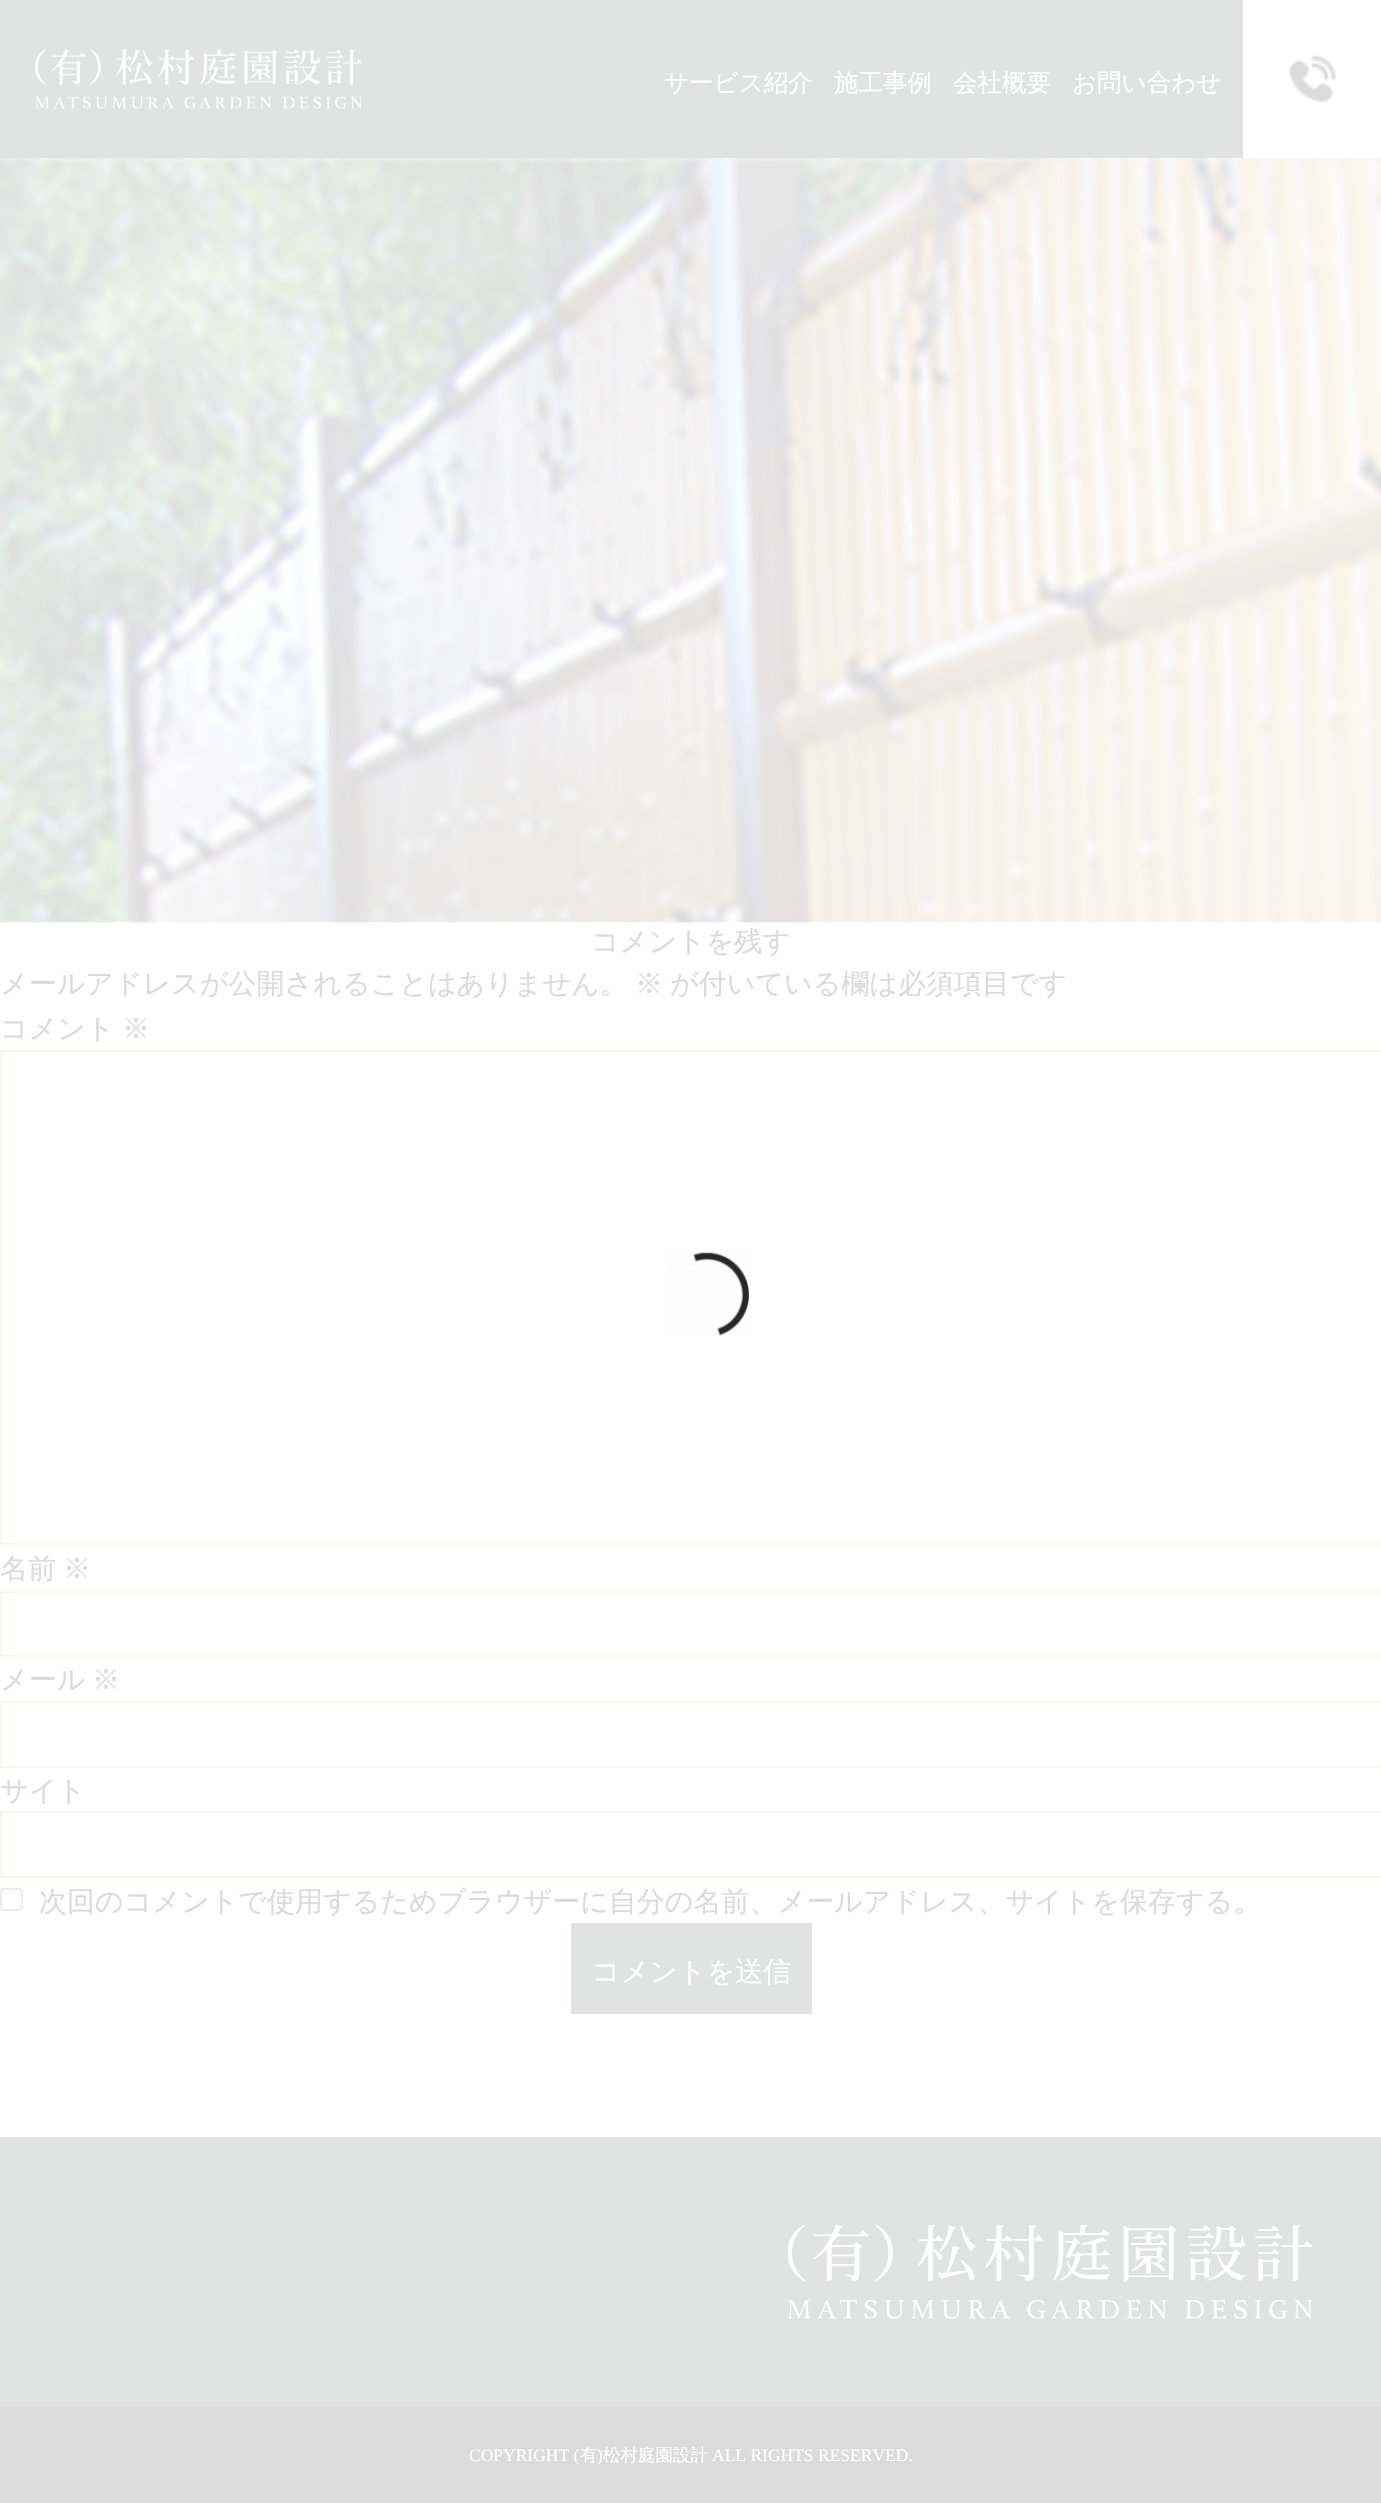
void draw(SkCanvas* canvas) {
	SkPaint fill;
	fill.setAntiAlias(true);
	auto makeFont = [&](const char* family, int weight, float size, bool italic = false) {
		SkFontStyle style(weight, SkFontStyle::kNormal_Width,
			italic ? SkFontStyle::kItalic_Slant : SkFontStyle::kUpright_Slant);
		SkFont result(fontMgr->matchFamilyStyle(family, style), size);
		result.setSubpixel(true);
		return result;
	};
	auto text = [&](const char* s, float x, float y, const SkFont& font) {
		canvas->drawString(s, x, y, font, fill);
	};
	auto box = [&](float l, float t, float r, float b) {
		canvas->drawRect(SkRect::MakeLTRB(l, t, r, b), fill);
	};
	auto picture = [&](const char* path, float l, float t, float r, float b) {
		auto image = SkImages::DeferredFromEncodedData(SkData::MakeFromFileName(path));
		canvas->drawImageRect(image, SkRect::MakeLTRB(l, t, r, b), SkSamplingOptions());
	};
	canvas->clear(0xFFFFFFFF);
	picture("image2.png", 0, 158, 1381, 923);
	fill.setColor(0xFFF8F8F8);
	fill.setMaskFilter(SkMaskFilter::MakeBlur(kNormal_SkBlurStyle, 3.5f));
	canvas->drawRect(SkRect::MakeLTRB(0, 0, 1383, 158), fill);
	fill.setMaskFilter(nullptr);
	fill.setColor(0xFFE0E3E1);
	box(0, 0, 1243, 158);
	picture("image0.png", 35, 48, 362, 109);
	fill.setColor(0xFFFFFFFF);
	box(1243, 0, 1381, 158);
	picture("image1.png", 1288, 54, 1336, 103);
	fill.setStyle(SkPaint::kStroke_Style);
	fill.setStrokeWidth(2);
	fill.setColor(0xFFF9F6ED);
	canvas->drawRect(SkRect::MakeLTRB(1, 1051, 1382, 1544), fill);
	canvas->drawRect(SkRect::MakeLTRB(1, 1592, 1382, 1656), fill);
	canvas->drawRect(SkRect::MakeLTRB(1, 1702, 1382, 1767), fill);
	canvas->drawRect(SkRect::MakeLTRB(1, 1812, 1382, 1877), fill);
	fill.setColor(0xFFECECEC);
	canvas->drawRoundRect(SkRect::MakeLTRB(1, 1889, 22, 1910), 3, 3, fill);
	fill.setStyle(SkPaint::kFill_Style);
	fill.setColor(0xFFE0E3E1);
	box(571, 1923, 812, 2014);
	box(0, 2137, 1381, 2406);
	picture("image3.png", 788, 2224, 1313, 2319);
	fill.setColor(0xFFDBDBDB);
	box(0, 2406, 1381, 2503);
	picture("image4.png", 666, 1252, 749, 1337);
	auto font1 = makeFont("WenQuanYi Zen Hei", 500, 24.5f);
	fill.setColor(0xFFFFFFFF);
	text("サービス紹介", 664, 91, font1);
	text("施工事例", 834, 91, font1);
	text("会社概要", 953, 91, font1);
	text("お問い合わせ", 1072, 91, font1);
	auto font2 = makeFont("WenQuanYi Zen Hei", 500, 28);
	fill.setColor(0xFFDBDBDB);
	text("コメントを残す", 591, 951, font2);
	text("メールアドレスが公開されることはありません。", 0, 993, font2);
	text("※", 635, 993, font2);
	text("が付いている欄は必須項目です", 670, 993, font2);
	text("コメント", 0, 1038, font2);
	text("※", 122, 1038, font2);
	text("名前", 0, 1578, font2);
	text("※", 63, 1578, font2);
	text("メール", 0, 1689, font2);
	text("※", 92, 1689, font2);
	text("サイト", 0, 1800, font2);
	text("次回のコメントで使用するためブラウザーに自分の名前、メールアドレス、サイトを保存する。", 39, 1911, font2);
	fill.setColor(0xFFFFFFFF);
	text("コメントを送信", 592, 1981, font2);
	auto font3 = makeFont("Liberation Serif", 400, 17.5f);
	text("COPYRIGHT (", 469, 2461, font3);
	auto font4 = makeFont("WenQuanYi Zen Hei", 500, 17.5f);
	text("有", 580, 2461, font4);
	text(")", 597, 2461, font3);
	text("松村庭園設計", 603, 2461, font4);
	text("ALL RIGHTS RESERVED.", 712, 2461, font3);
}
